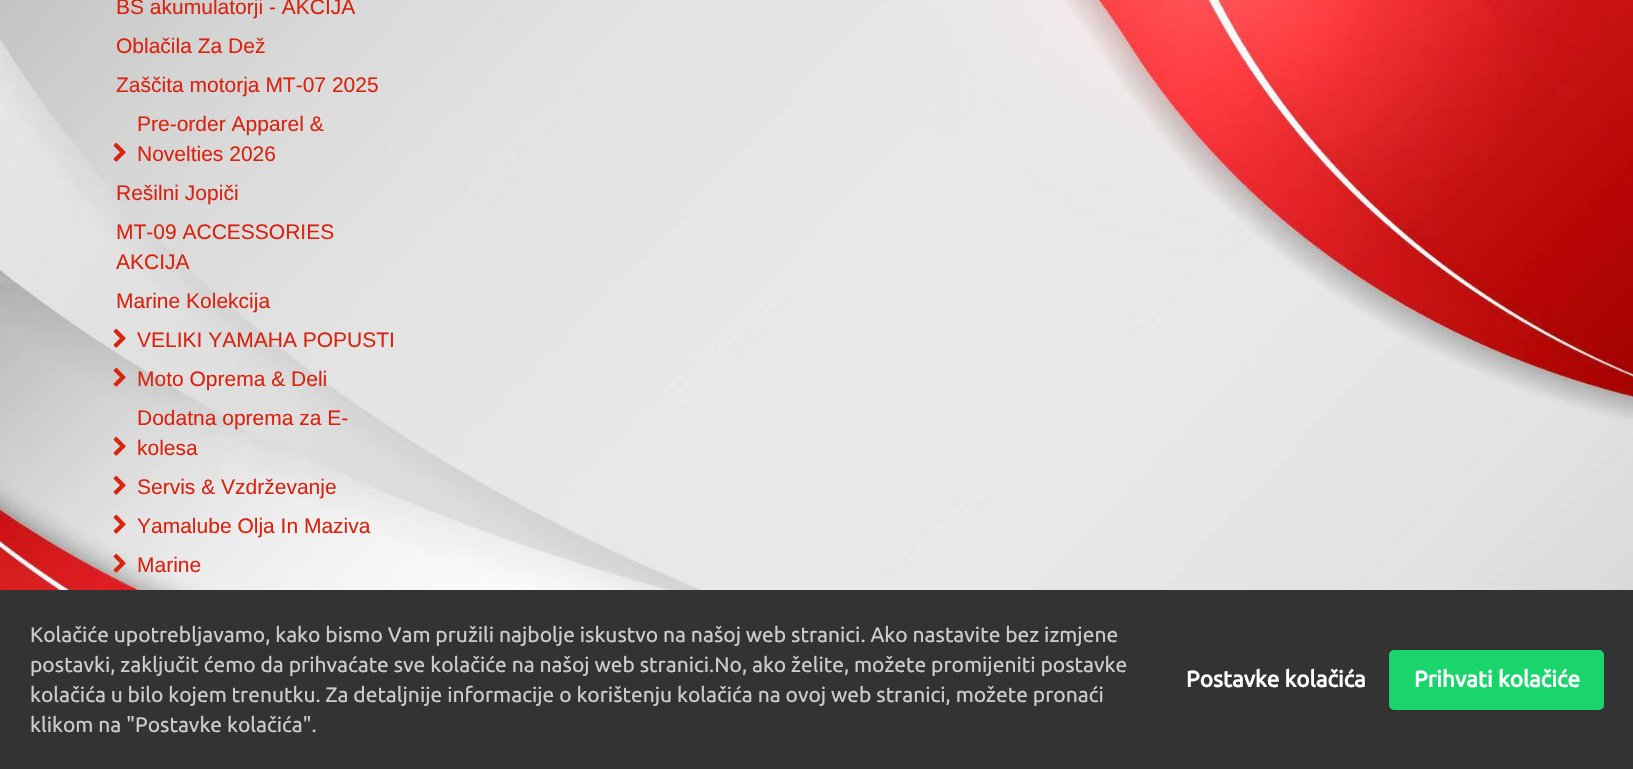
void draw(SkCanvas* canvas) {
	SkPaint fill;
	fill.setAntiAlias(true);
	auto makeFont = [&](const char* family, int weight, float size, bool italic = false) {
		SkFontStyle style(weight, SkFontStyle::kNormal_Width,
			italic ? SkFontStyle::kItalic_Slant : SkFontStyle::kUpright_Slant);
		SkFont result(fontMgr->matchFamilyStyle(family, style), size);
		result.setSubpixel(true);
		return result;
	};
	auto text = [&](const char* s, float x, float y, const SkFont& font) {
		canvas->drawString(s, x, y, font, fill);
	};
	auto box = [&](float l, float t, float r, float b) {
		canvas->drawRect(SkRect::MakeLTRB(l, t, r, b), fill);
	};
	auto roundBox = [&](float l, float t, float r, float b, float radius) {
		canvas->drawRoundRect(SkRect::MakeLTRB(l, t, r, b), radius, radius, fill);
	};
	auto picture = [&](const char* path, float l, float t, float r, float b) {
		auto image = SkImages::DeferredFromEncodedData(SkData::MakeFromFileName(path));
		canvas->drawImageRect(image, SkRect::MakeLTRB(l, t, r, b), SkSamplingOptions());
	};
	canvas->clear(0xFFFFFFFF);
	picture("image0.png", 0, 0, 1633, 590);
	picture("image1.png", 113, 142, 126, 162);
	picture("image2.png", 113, 328, 126, 348);
	picture("image3.png", 113, 367, 126, 387);
	picture("image4.png", 113, 436, 126, 456);
	picture("image5.png", 113, 475, 126, 495);
	picture("image6.png", 113, 514, 126, 534);
	picture("image7.png", 113, 553, 126, 573);
	fill.setColor(0xFF333333);
	box(0, 590, 1633, 769);
	fill.setColor(0xFF1AD56C);
	roundBox(1389, 650, 1604, 710, 5);
	auto font1 = makeFont("Liberation Sans", 400, 21);
	fill.setColor(0xFFD9230F);
	text("BS akumulatorji - AKCIJA", 116, 14, font1);
	text("Oblačila Za Dež", 116, 53, font1);
	text("Zaščita motorja MT-07 2025", 116, 92, font1);
	text("Pre-order Apparel &", 137, 131, font1);
	text("Novelties 2026", 137, 161, font1);
	text("Rešilni Jopiči", 116, 200, font1);
	text("MT-09 ACCESSORIES", 116, 239, font1);
	text("AKCIJA", 116, 269, font1);
	text("Marine Kolekcija", 116, 308, font1);
	text("VELIKI YAMAHA POPUSTI", 137, 347, font1);
	text("Moto Oprema & Deli", 137, 386, font1);
	text("Dodatna oprema za E-", 137, 425, font1);
	text("kolesa", 137, 455, font1);
	text("Servis & Vzdrževanje", 137, 494, font1);
	text("Yamalube Olja In Maziva", 137, 533, font1);
	text("Marine", 137, 572, font1);
	auto font2 = makeFont("Ubuntu", 400, 21);
	fill.setColor(0xFFCCCCCC);
	text("Kolačiće upotrebljavamo, kako bismo Vam pružili najbolje iskustvo na našoj web stranici. Ako nastavite bez izmjene", 30, 642, font2);
	text("postavki, zaključit ćemo da prihvaćate sve kolačiće na našoj web stranici.No, ako želite, možete promijeniti postavke", 30, 672, font2);
	text("kolačića u bilo kojem trenutku. Za detaljnije informacije o korištenju kolačića na ovoj web stranici, možete pronaći", 30, 702, font2);
	text("klikom na \"Postavke kolačića\".", 30, 732, font2);
	auto font3 = makeFont("Ubuntu", 700, 22.5f);
	fill.setColor(0xFFFFFFFF);
	text("Postavke kolačića", 1186, 687, font3);
	text("Prihvati kolačiće", 1414, 687, font3);
}
